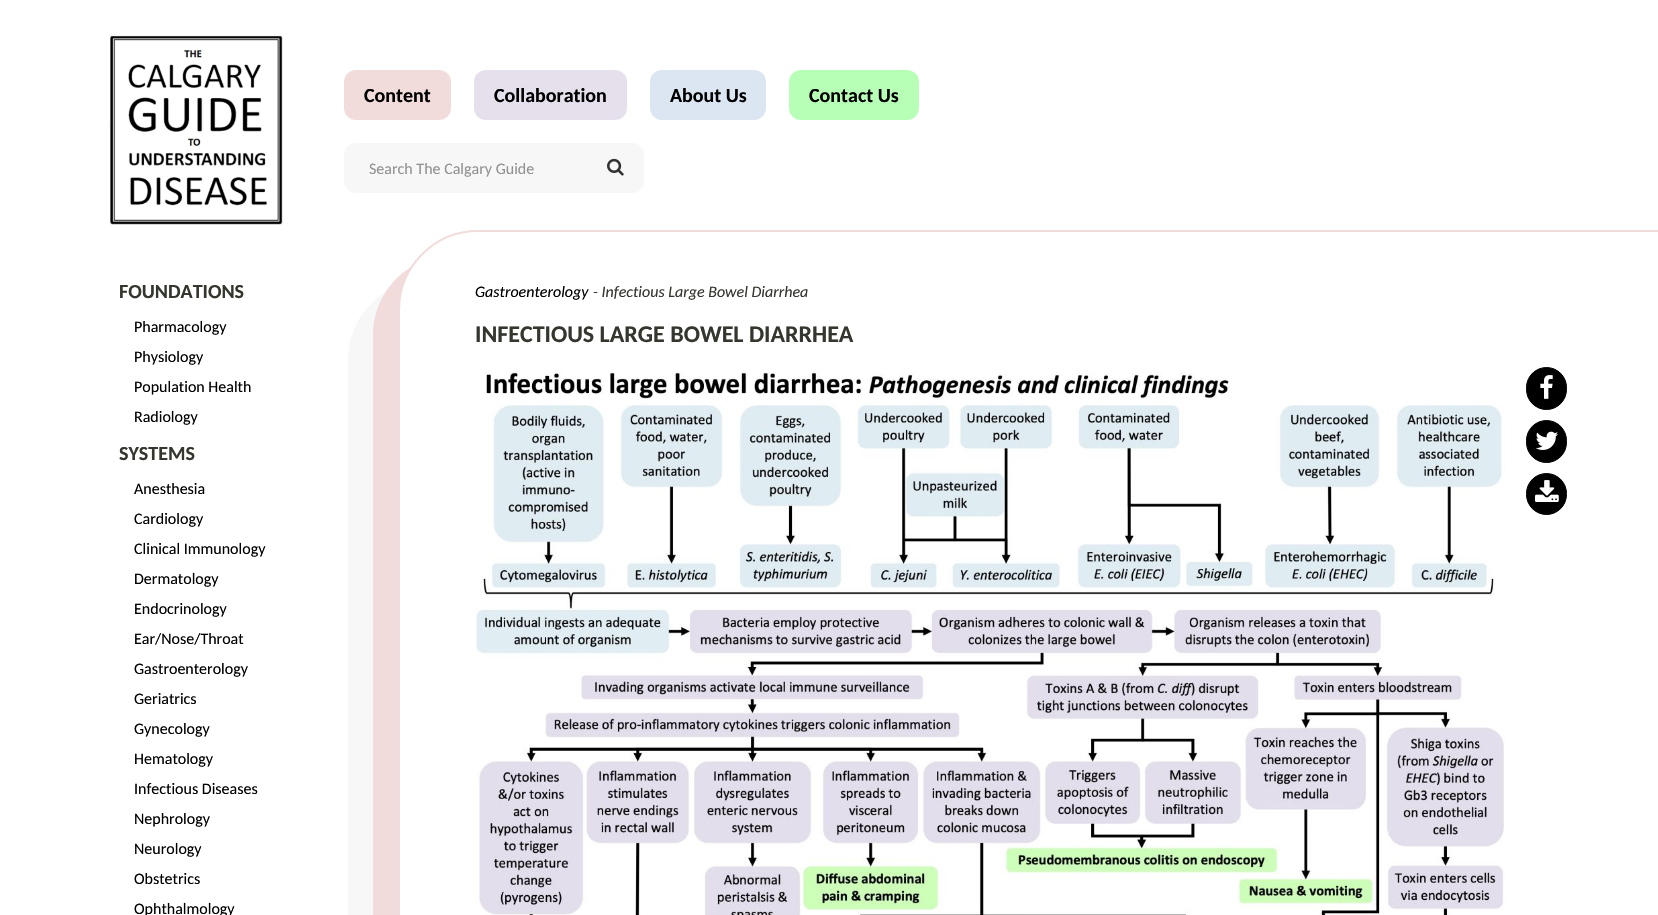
void draw(SkCanvas* canvas) {
	SkPaint fill;
	fill.setAntiAlias(true);
	auto makeFont = [&](const char* family, int weight, float size, bool italic = false) {
		SkFontStyle style(weight, SkFontStyle::kNormal_Width,
			italic ? SkFontStyle::kItalic_Slant : SkFontStyle::kUpright_Slant);
		SkFont result(fontMgr->matchFamilyStyle(family, style), size);
		result.setSubpixel(true);
		return result;
	};
	auto text = [&](const char* s, float x, float y, const SkFont& font) {
		canvas->drawString(s, x, y, font, fill);
	};
	auto roundBox = [&](float l, float t, float r, float b, float radius) {
		canvas->drawRoundRect(SkRect::MakeLTRB(l, t, r, b), radius, radius, fill);
	};
	auto picture = [&](const char* path, float l, float t, float r, float b) {
		auto image = SkImages::DeferredFromEncodedData(SkData::MakeFromFileName(path));
		canvas->drawImageRect(image, SkRect::MakeLTRB(l, t, r, b), SkSamplingOptions());
	};
	canvas->clear(0xFFFFFFFF);
	picture("image0.png", 109, 35, 283, 225);
	fill.setColor(0xFFF2DCDB);
	roundBox(344, 70, 451, 120, 12);
	fill.setColor(0xFFE6E0EC);
	roundBox(474, 70, 627, 120, 12);
	fill.setColor(0xFFDCE6F2);
	roundBox(650, 70, 766, 120, 12);
	fill.setColor(0xFFB7FFB7);
	roundBox(789, 70, 919, 120, 12);
	fill.setColor(0xFFF7F7F7);
	canvas->drawPath(SkPathBuilder().moveTo(356, 143).lineTo(587, 143).lineTo(587, 193).lineTo(356, 193).cubicTo(349.5f, 193, 344, 187.5f, 344, 181).lineTo(344, 155).cubicTo(344, 148.5f, 349.5f, 143, 356, 143).close().detach(), fill);
	canvas->drawPath(SkPathBuilder().moveTo(587, 143).lineTo(632, 143).cubicTo(638.5f, 143, 644, 148.5f, 644, 155).lineTo(644, 181).cubicTo(644, 187.5f, 638.5f, 193, 632, 193).lineTo(587, 193).close().detach(), fill);
	picture("image1.png", 607, 158, 624, 176);
	canvas->drawPath(SkPathBuilder().moveTo(428, 280).lineTo(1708, 280).lineTo(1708, 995).lineTo(428, 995).cubicTo(384, 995, 348, 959, 348, 915).lineTo(348, 360).cubicTo(348, 316, 384, 280, 428, 280).close().detach(), fill);
	fill.setColor(0xFFF2DCDB);
	canvas->drawPath(SkPathBuilder().moveTo(453, 255).lineTo(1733, 255).lineTo(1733, 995).lineTo(453, 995).cubicTo(409, 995, 373, 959, 373, 915).lineTo(373, 335).cubicTo(373, 291, 409, 255, 453, 255).close().detach(), fill);
	fill.setColor(0xFFFFFFFF);
	canvas->drawPath(SkPathBuilder().moveTo(478, 231).lineTo(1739, 231).lineTo(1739, 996).lineTo(478, 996).cubicTo(434.5f, 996, 399, 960.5f, 399, 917).lineTo(399, 310).cubicTo(399, 266.5f, 434.5f, 231, 478, 231).close().detach(), fill);
	fill.setStyle(SkPaint::kStroke_Style);
	fill.setStrokeWidth(2);
	fill.setColor(0xFFF2DCDB);
	canvas->drawPath(SkPathBuilder().moveTo(478, 231).lineTo(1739, 231).lineTo(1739, 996).lineTo(478, 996).cubicTo(434.5f, 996, 399, 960.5f, 399, 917).lineTo(399, 310).cubicTo(399, 266.5f, 434.5f, 231, 478, 231).close().detach(), fill);
	picture("image2.png", 475, 372, 1506, 915);
	fill.setStyle(SkPaint::kFill_Style);
	fill.setColor(0xFF000000);
	canvas->drawRoundRect(SkRect::MakeLTRB(1526.5f, 367.5f, 1566.5f, 409.5f), 20, 20, fill);
	fill.setStyle(SkPaint::kStroke_Style);
	fill.setStrokeWidth(1);
	canvas->drawRoundRect(SkRect::MakeLTRB(1526.5f, 367.5f, 1566.5f, 409.5f), 20, 20, fill);
	picture("image3.png", 1540, 375, 1553, 399);
	fill.setStyle(SkPaint::kFill_Style);
	canvas->drawRoundRect(SkRect::MakeLTRB(1526.5f, 420.5f, 1566.5f, 462.5f), 20, 20, fill);
	fill.setStyle(SkPaint::kStroke_Style);
	canvas->drawRoundRect(SkRect::MakeLTRB(1526.5f, 420.5f, 1566.5f, 462.5f), 20, 20, fill);
	picture("image4.png", 1536, 431, 1558, 450);
	fill.setStyle(SkPaint::kFill_Style);
	canvas->drawRoundRect(SkRect::MakeLTRB(1526.5f, 473.5f, 1566.5f, 514.5f), 20, 20, fill);
	fill.setStyle(SkPaint::kStroke_Style);
	canvas->drawRoundRect(SkRect::MakeLTRB(1526.5f, 473.5f, 1566.5f, 514.5f), 20, 20, fill);
	picture("image5.png", 1535, 480, 1559, 502);
	auto font1 = makeFont("Carlito", 700, 20);
	fill.setStyle(SkPaint::kFill_Style);
	text("Content", 364, 102, font1);
	text("Collaboration", 494, 102, font1);
	text("About Us", 670, 102, font1);
	text("Contact Us", 809, 102, font1);
	auto font2 = makeFont("Carlito", 400, 16);
	fill.setColor(0xFF929292);
	text("Search The Calgary Guide", 369, 174, font2);
	fill.setColor(0xFF34372E);
	text("FOUNDATIONS", 119, 298, font1);
	fill.setColor(0xFF000000);
	text("Pharmacology", 134, 332, font2);
	text("Physiology", 134, 362, font2);
	text("Population Health", 134, 392, font2);
	text("Radiology", 134, 422, font2);
	fill.setColor(0xFF34372E);
	text("SYSTEMS", 119, 460, font1);
	fill.setColor(0xFF000000);
	text("Anesthesia", 134, 494, font2);
	text("Cardiology", 134, 524, font2);
	text("Clinical Immunology", 134, 554, font2);
	text("Dermatology", 134, 584, font2);
	text("Endocrinology", 134, 614, font2);
	text("Ear/Nose/Throat", 134, 644, font2);
	text("Gastroenterology", 134, 674, font2);
	text("Geriatrics", 134, 704, font2);
	text("Gynecology", 134, 734, font2);
	text("Hematology", 134, 764, font2);
	text("Infectious Diseases", 134, 794, font2);
	text("Nephrology", 134, 824, font2);
	text("Neurology", 134, 854, font2);
	text("Obstetrics", 134, 884, font2);
	text("Ophthalmology", 134, 914, font2);
	auto font3 = makeFont("Carlito", 400, 16, true);
	text("Gastroenterology", 475, 297, font3);
	fill.setColor(0xFF34372E);
	text("- Infectious Large Bowel Diarrhea", 593, 297, font3);
	auto font4 = makeFont("Carlito", 700, 24);
	text("INFECTIOUS LARGE BOWEL DIARRHEA", 475, 342, font4);
}
